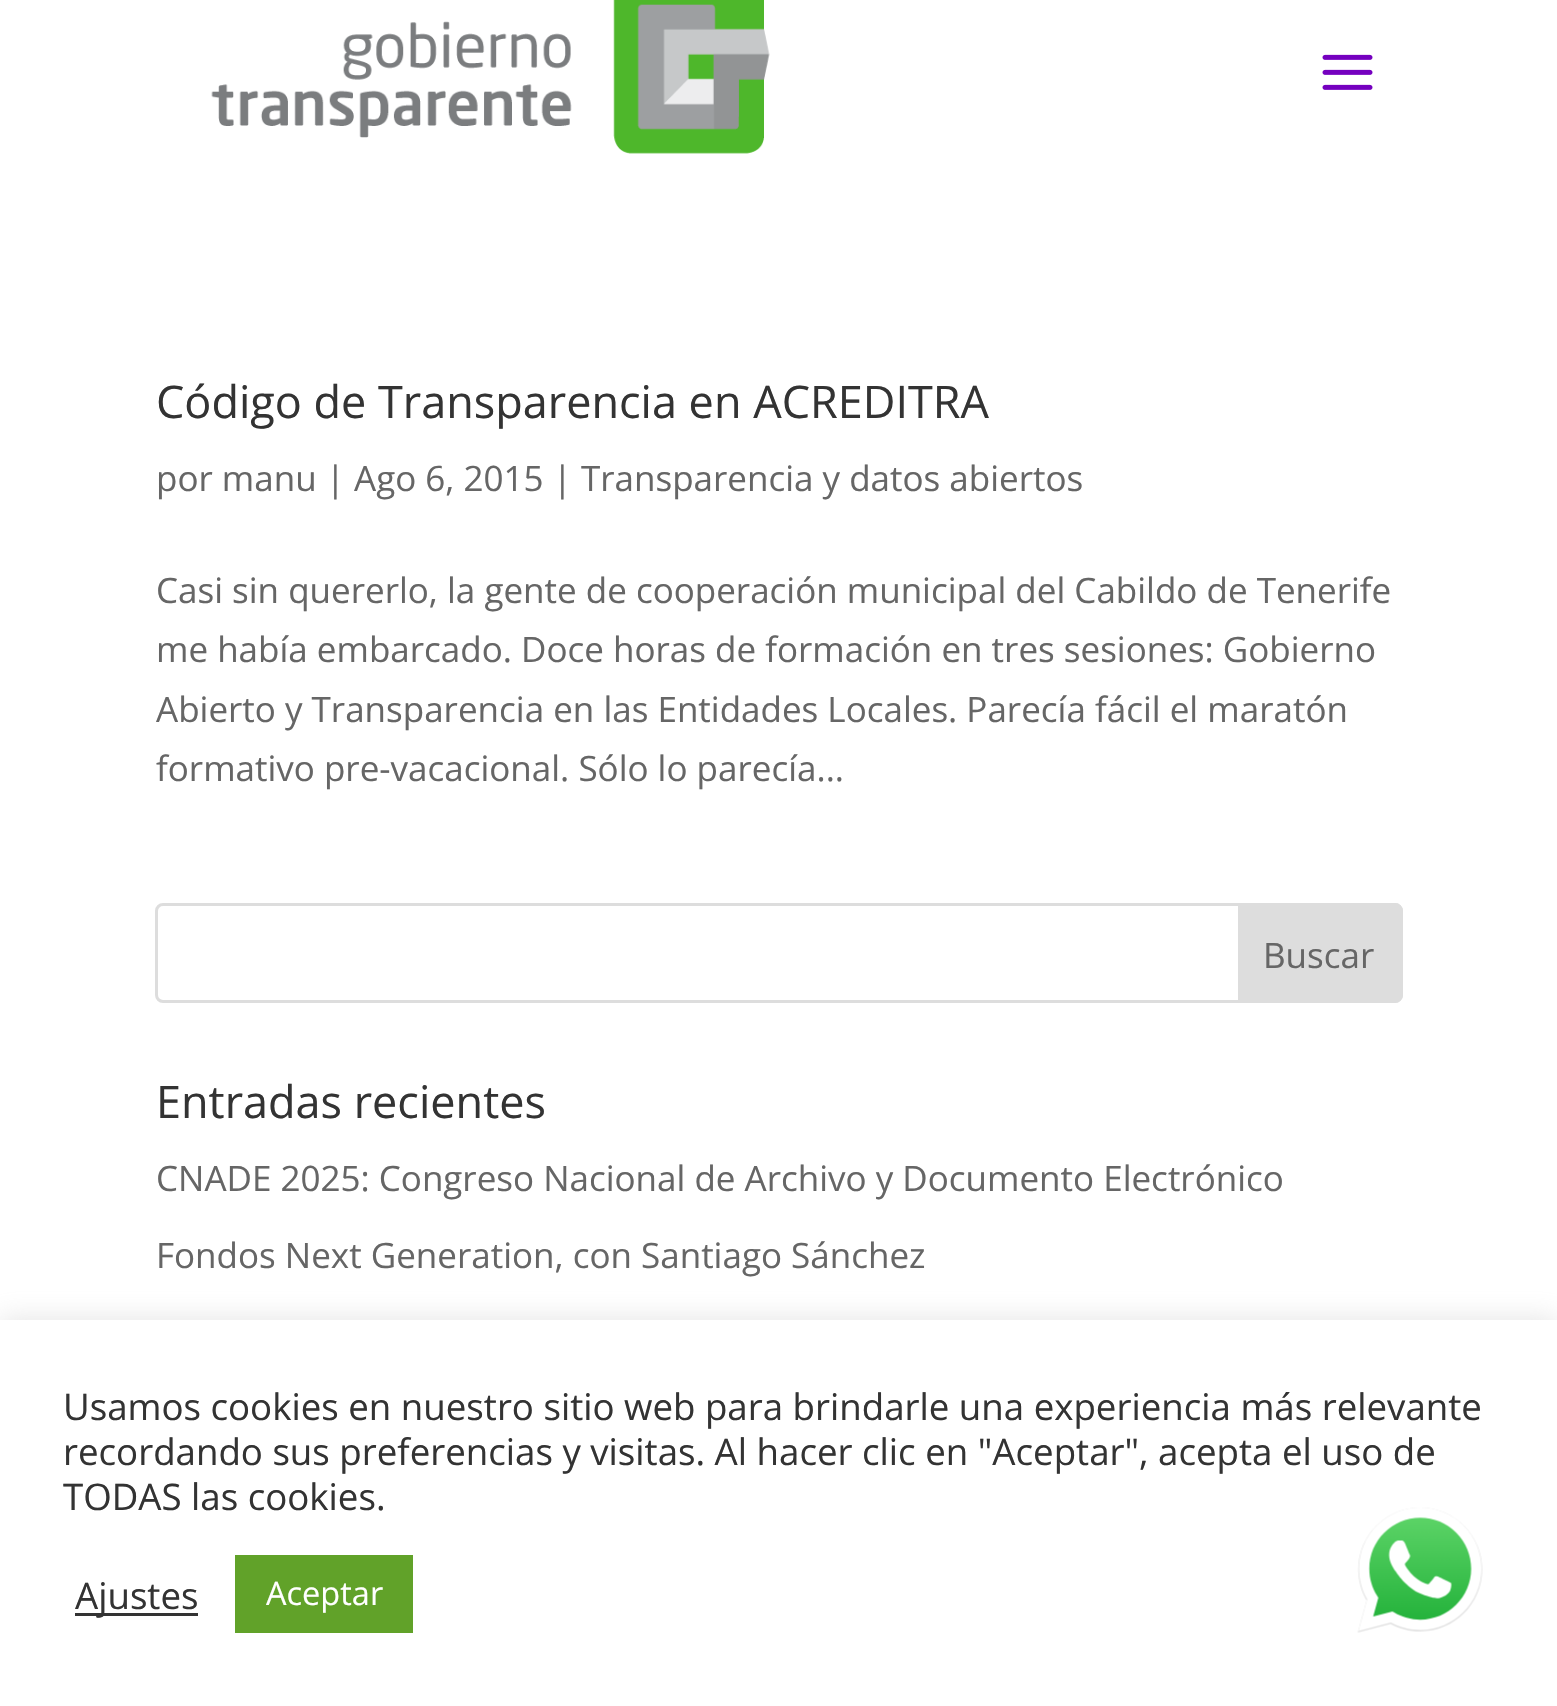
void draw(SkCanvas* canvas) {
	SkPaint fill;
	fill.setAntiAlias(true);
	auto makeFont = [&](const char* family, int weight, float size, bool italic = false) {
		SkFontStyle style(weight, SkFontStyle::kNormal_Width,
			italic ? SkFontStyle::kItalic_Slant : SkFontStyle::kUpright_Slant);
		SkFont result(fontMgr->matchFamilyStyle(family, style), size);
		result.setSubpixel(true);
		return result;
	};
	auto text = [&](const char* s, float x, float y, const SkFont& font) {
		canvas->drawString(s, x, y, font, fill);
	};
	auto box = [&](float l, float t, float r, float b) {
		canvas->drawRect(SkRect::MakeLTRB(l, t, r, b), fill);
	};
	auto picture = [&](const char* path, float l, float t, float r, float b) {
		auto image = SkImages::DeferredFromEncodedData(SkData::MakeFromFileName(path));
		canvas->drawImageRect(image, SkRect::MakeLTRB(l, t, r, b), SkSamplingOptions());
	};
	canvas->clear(0xFFFFFFFF);
	picture("image0.png", 211, 0, 770, 154);
	picture("image1.png", 1322, 54, 1373, 90);
	fill.setStyle(SkPaint::kStroke_Style);
	fill.setStrokeWidth(3);
	fill.setColor(0xFFDDDDDD);
	canvas->drawRoundRect(SkRect::MakeLTRB(156.5f, 904.5f, 1401.5f, 1001.5f), 6.5f, 6.5f, fill);
	fill.setStyle(SkPaint::kFill_Style);
	canvas->drawPath(SkPathBuilder().moveTo(1239.5f, 904.5f).lineTo(1395, 904.5f).cubicTo(1398.5f, 904.5f, 1401.5f, 907.5f, 1401.5f, 911).lineTo(1401.5f, 995).cubicTo(1401.5f, 998.5f, 1398.5f, 1001.5f, 1395, 1001.5f).lineTo(1239.5f, 1001.5f).close().detach(), fill);
	fill.setStyle(SkPaint::kStroke_Style);
	canvas->drawPath(SkPathBuilder().moveTo(1239.5f, 904.5f).lineTo(1395, 904.5f).cubicTo(1398.5f, 904.5f, 1401.5f, 907.5f, 1401.5f, 911).lineTo(1401.5f, 995).cubicTo(1401.5f, 998.5f, 1398.5f, 1001.5f, 1395, 1001.5f).lineTo(1239.5f, 1001.5f).close().detach(), fill);
	fill.setStyle(SkPaint::kFill_Style);
	fill.setColor(0x4DACABAB);
	fill.setMaskFilter(SkMaskFilter::MakeBlur(kNormal_SkBlurStyle, 12.5f));
	canvas->drawRect(SkRect::MakeLTRB(0, 1318, 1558, 1705), fill);
	fill.setMaskFilter(nullptr);
	fill.setColor(0xFFFFFFFF);
	box(0, 1320, 1557, 1706);
	fill.setColor(0xFF333333);
	box(75, 1613, 198, 1616);
	fill.setColor(0xFF61A229);
	box(235, 1555, 413, 1633);
	picture("image2.png", 1357, 1507, 1483, 1633);
	auto font1 = makeFont("Open Sans", 400, 45);
	fill.setColor(0xFF333333);
	text("Código de Transparencia en ACREDITRA", 156, 418, font1);
	auto font2 = makeFont("Open Sans", 400, 35);
	fill.setColor(0xFF666666);
	text("por manu | Ago 6, 2015 | Transparencia y datos abiertos", 156, 491, font2);
	text("Casi sin quererlo, la gente de cooperación municipal del Cabildo de Tenerife", 156, 603, font2);
	text("me había embarcado. Doce horas de formación en tres sesiones: Gobierno", 156, 662, font2);
	text("Abierto y Transparencia en las Entidades Locales. Parecía fácil el maratón", 156, 722, font2);
	text("formativo pre-vacacional. Sólo lo parecía...", 156, 781, font2);
	text("Buscar", 1263, 968, font2);
	fill.setColor(0xFF333333);
	text("Entradas recientes", 156, 1118, font1);
	fill.setColor(0xFF666666);
	text("CNADE 2025: Congreso Nacional de Archivo y Documento Electrónico", 156, 1191, font2);
	text("Fondos Next Generation, con Santiago Sánchez", 156, 1268, font2);
	auto font3 = makeFont("Open Sans", 400, 36.65f);
	fill.setColor(0xFF333333);
	text("Usamos cookies en nuestro sitio web para brindarle una experiencia más relevante", 63, 1420, font3);
	text("recordando sus preferencias y visitas. Al hacer clic en \"Aceptar\", acepta el uso de", 63, 1465, font3);
	text("TODAS las cookies.", 63, 1510, font3);
	text("Ajustes", 75, 1609, font3);
	auto font4 = makeFont("Open Sans", 400, 32.5f);
	fill.setColor(0xFFFFFFFF);
	text("Aceptar", 266, 1605, font4);
}
